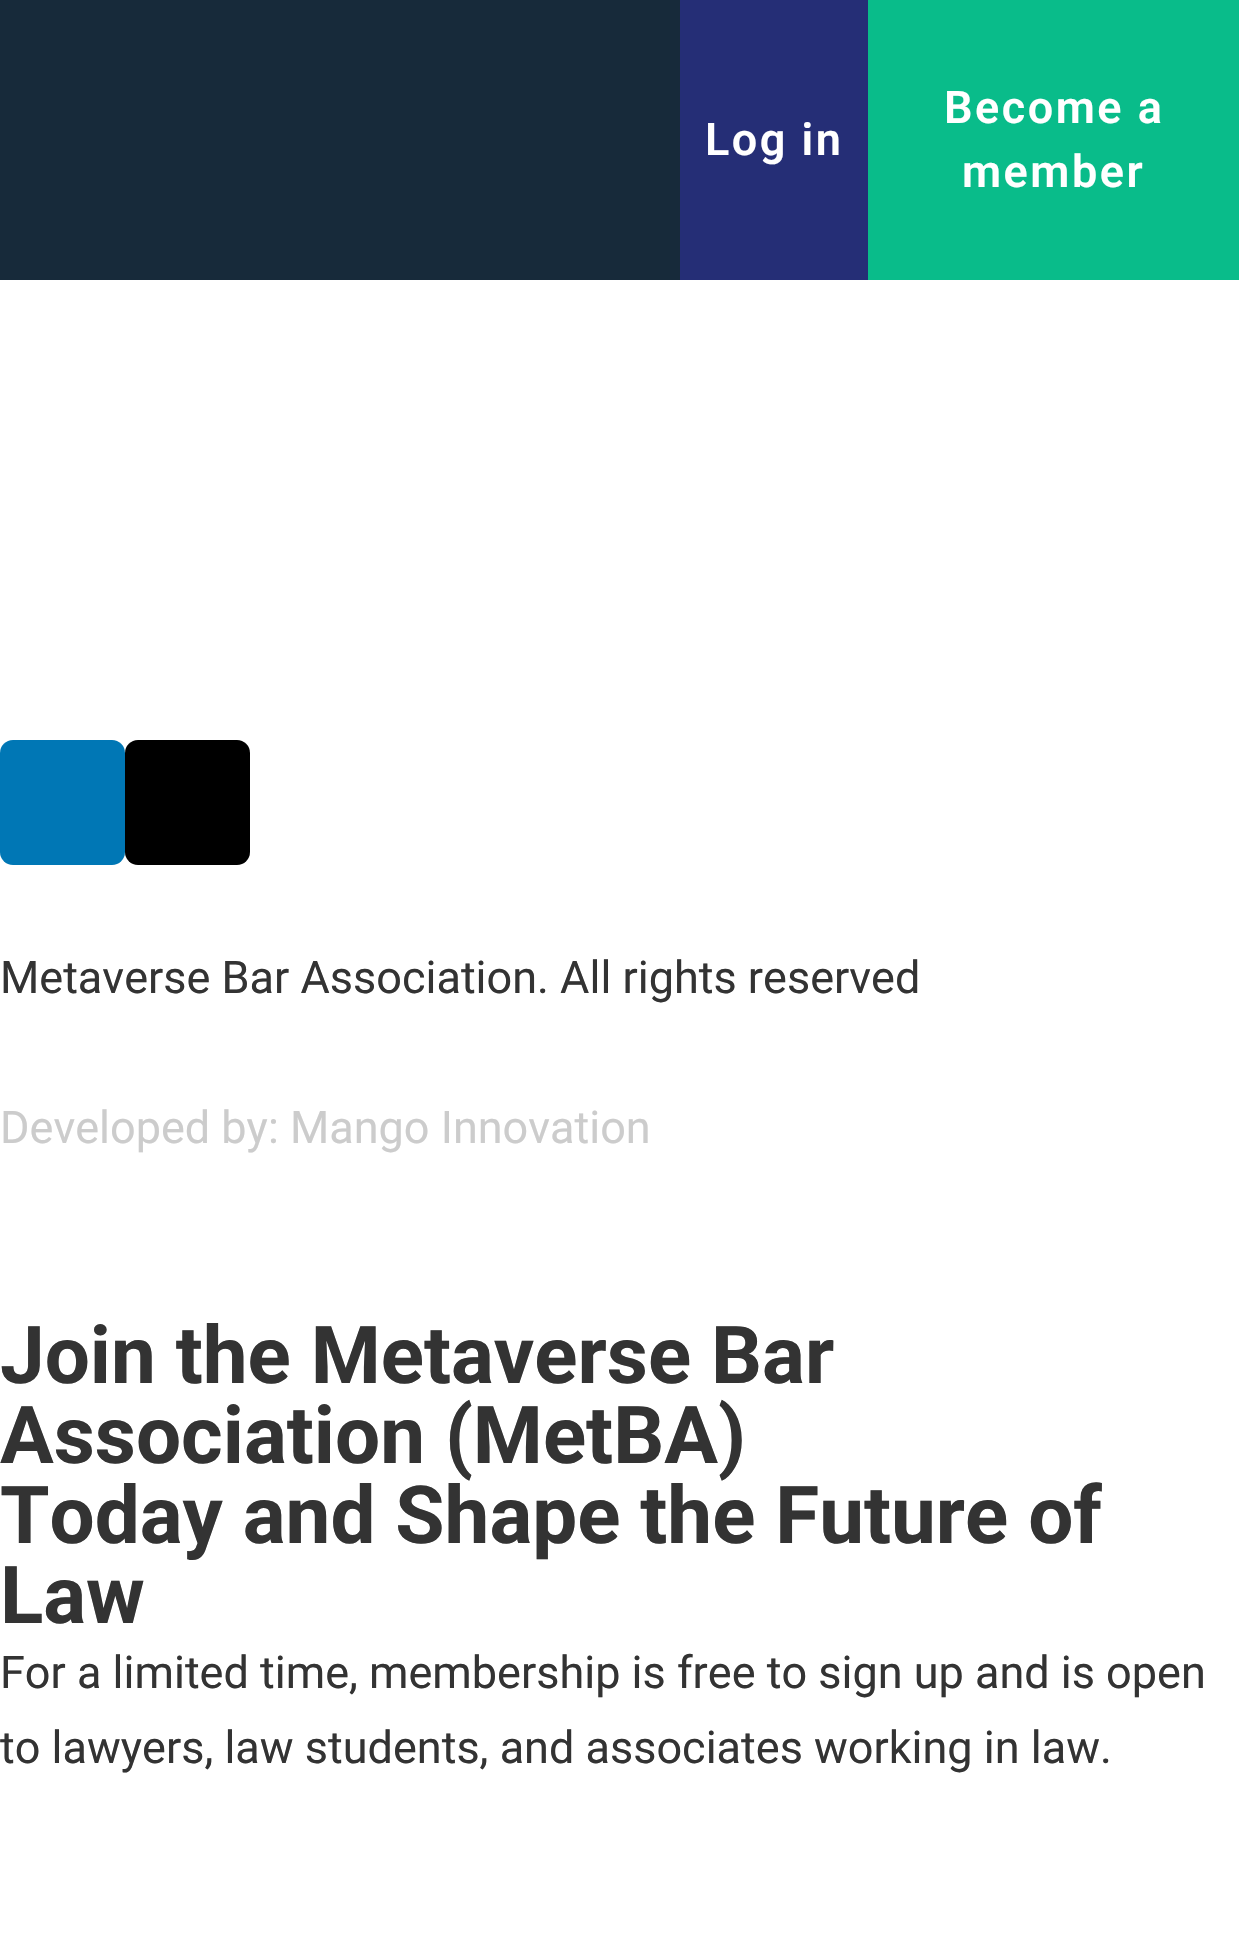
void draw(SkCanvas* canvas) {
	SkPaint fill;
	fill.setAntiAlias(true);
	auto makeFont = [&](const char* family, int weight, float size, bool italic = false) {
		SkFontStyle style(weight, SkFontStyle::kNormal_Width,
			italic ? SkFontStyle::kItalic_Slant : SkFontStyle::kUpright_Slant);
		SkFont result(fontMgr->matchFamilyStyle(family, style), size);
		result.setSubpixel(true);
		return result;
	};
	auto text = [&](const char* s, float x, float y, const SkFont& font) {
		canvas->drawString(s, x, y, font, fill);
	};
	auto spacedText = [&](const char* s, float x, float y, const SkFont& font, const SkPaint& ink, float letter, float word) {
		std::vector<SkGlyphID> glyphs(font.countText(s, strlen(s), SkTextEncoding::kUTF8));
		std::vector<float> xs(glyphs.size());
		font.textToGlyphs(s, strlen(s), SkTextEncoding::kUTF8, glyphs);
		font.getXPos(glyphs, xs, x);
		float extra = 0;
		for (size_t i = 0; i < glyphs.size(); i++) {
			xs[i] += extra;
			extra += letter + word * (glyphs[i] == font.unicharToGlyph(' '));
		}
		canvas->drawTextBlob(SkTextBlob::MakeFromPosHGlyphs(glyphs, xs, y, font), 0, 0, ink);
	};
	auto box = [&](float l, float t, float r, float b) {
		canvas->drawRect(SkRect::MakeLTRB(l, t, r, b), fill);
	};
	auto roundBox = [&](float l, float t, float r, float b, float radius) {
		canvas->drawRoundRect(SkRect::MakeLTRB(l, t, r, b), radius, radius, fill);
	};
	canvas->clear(0xFFFFFFFF);
	fill.setColor(0xFF172A3A);
	box(0, 0, 680, 280);
	fill.setColor(0xFF252E76);
	box(680, 0, 868, 280);
	fill.setColor(0xFF09BC8A);
	box(868, 0, 1239, 280);
	fill.setColor(0xFF0077B5);
	roundBox(0, 740, 125, 865, 13);
	fill.setColor(0xFF000000);
	roundBox(125, 740, 250, 865, 13);
	auto font1 = makeFont("Roboto", 600, 45);
	fill.setColor(0xFFFFFFFF);
	spacedText("Log in", 705, 155, font1, fill, 2.5f, 0);
	spacedText("Become a", 944, 123, font1, fill, 2.5f, 0);
	spacedText("member", 962, 187, font1, fill, 2.5f, 0);
	auto font2 = makeFont("Roboto", 400, 45);
	fill.setColor(0xFF333333);
	text("Metaverse Bar Association. All rights reserved", 0, 993, font2);
	fill.setColor(0xFFCCCCCC);
	text("Developed by: Mango Innovation", 0, 1143, font2);
	auto font3 = makeFont("Roboto", 700, 80);
	fill.setColor(0xFF333333);
	text("Join the Metaverse Bar", 0, 1383, font3);
	text("Association (MetBA)", 0, 1463, font3);
	text("Today and Shape the Future of", 0, 1543, font3);
	text("Law", 0, 1623, font3);
	text("For a limited time, membership is free to sign up and is open", 0, 1688, font2);
	text("to lawyers, law students, and associates working in law.", 0, 1763, font2);
}
